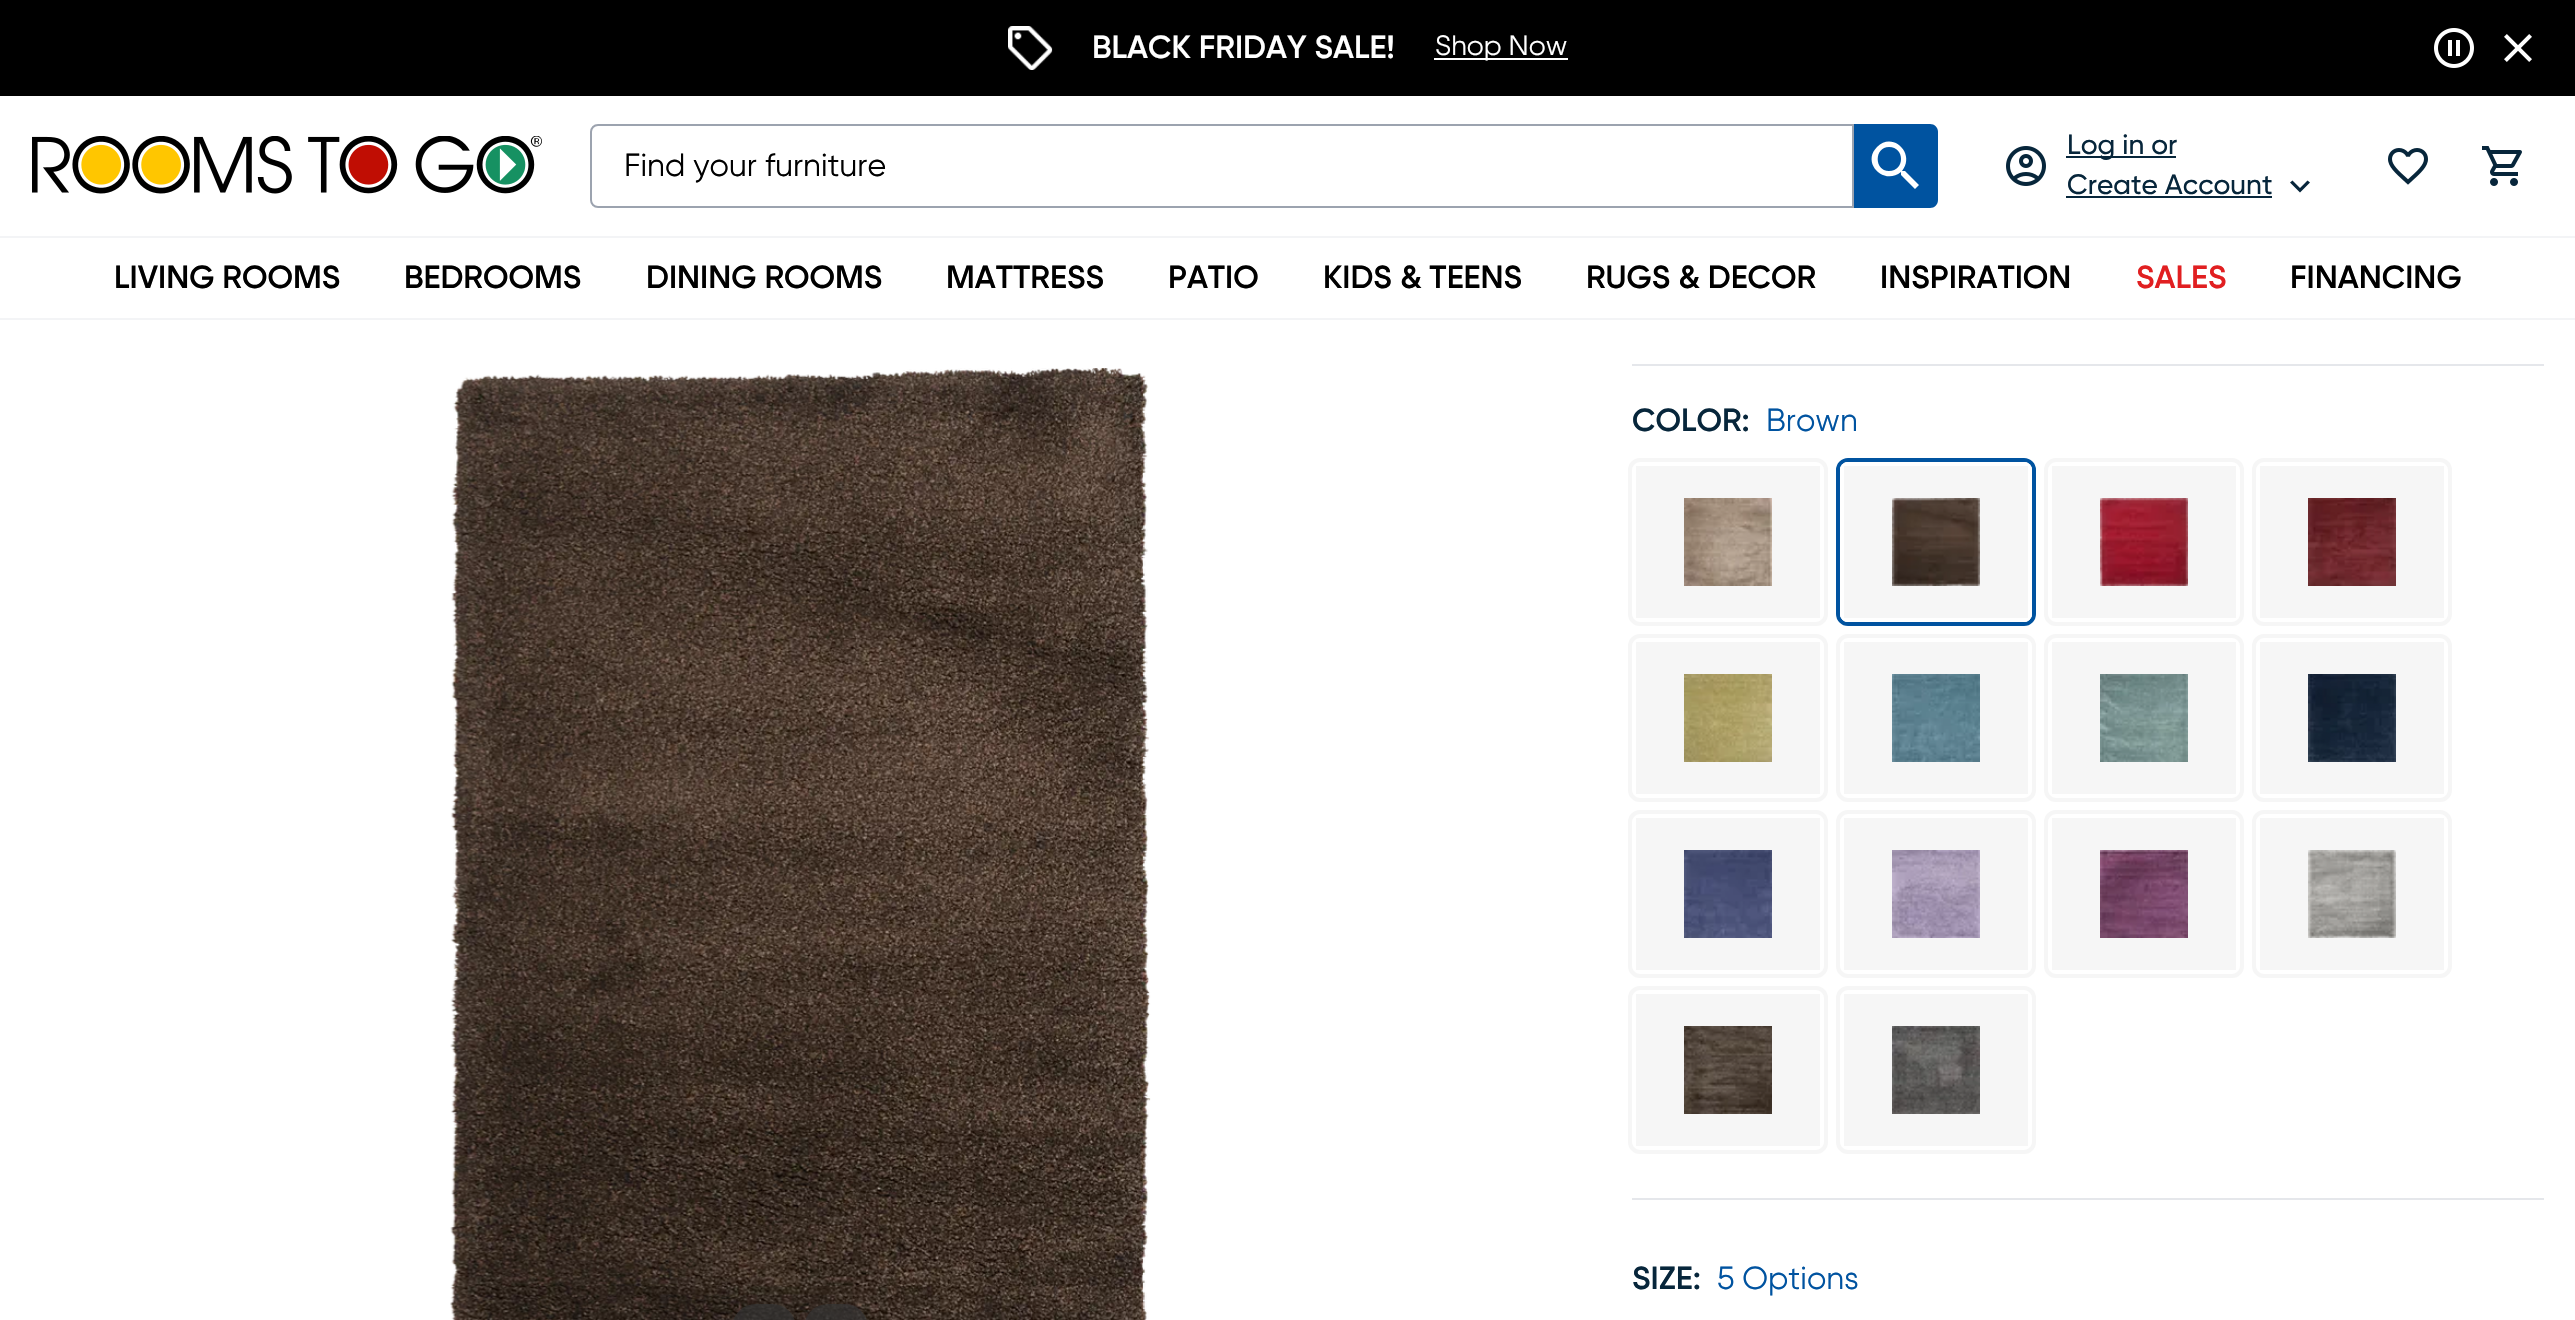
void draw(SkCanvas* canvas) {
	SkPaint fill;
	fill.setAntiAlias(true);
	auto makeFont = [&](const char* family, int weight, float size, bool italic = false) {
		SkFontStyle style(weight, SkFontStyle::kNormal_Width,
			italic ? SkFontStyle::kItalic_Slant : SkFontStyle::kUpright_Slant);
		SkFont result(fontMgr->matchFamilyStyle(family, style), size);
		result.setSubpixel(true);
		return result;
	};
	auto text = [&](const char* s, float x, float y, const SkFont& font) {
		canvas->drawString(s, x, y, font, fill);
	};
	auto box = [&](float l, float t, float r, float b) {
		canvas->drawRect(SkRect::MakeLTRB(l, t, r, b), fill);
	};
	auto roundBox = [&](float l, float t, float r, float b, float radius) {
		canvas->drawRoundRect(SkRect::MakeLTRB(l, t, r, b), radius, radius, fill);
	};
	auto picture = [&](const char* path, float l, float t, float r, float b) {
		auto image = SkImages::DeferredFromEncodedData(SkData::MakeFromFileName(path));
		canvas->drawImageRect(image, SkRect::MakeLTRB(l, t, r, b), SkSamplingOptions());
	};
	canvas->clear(0xFFFFFFFF);
	fill.setColor(0xFFF3F4F6);
	box(0, 318, 2575, 320);
	fill.setColor(0xFF000000);
	box(0, 0, 2575, 96);
	picture("image0.png", 1008, 26, 1053, 70);
	fill.setColor(0xFFFFFFFF);
	box(1434, 58, 1568, 60);
	picture("image1.png", 2434, 28, 2474, 68);
	picture("image2.png", 2504, 34, 2532, 62);
	picture("image3.png", 32, 136, 542, 194);
	fill.setStyle(SkPaint::kStroke_Style);
	fill.setStrokeWidth(2);
	fill.setColor(0xFF9CA3AF);
	canvas->drawPath(SkPathBuilder().moveTo(598, 125).lineTo(1853, 125).lineTo(1853, 207).lineTo(598, 207).cubicTo(594, 207, 591, 204, 591, 200).lineTo(591, 132).cubicTo(591, 128, 594, 125, 598, 125).close().detach(), fill);
	fill.setStyle(SkPaint::kFill_Style);
	fill.setColor(0xFF0053A0);
	canvas->drawPath(SkPathBuilder().moveTo(1854, 124).lineTo(1930, 124).cubicTo(1934.5f, 124, 1938, 127.5f, 1938, 132).lineTo(1938, 200).cubicTo(1938, 204.5f, 1934.5f, 208, 1930, 208).lineTo(1854, 208).close().detach(), fill);
	fill.setColor(0xFFFFFFFF);
	canvas->drawPath(SkPathBuilder().moveTo(1905, 171).lineTo(1903, 171).lineTo(1902, 171).cubicTo(1916, 154, 1893, 131, 1877, 147).cubicTo(1861, 163, 1884, 186, 1901, 172).lineTo(1901, 173).lineTo(1901, 175).lineTo(1915, 189).lineTo(1919, 185).close().moveTo(1889, 171).cubicTo(1874, 171, 1874, 147, 1889, 147).cubicTo(1905, 147, 1905, 171, 1889, 171).close().detach(), fill);
	picture("image4.png", 2006, 146, 2046, 186);
	fill.setColor(0xFF07263B);
	box(2066, 156, 2176, 158);
	box(2066, 196, 2272, 198);
	canvas->drawPath(SkPathBuilder().moveTo(2307.5f, 180.5f).lineTo(2300, 188).lineTo(2292.5f, 180.5f).lineTo(2290, 182.5f).lineTo(2300, 192.5f).lineTo(2310, 182.5f).close().detach(), fill);
	picture("image5.png", 2388, 148, 2428, 185);
	picture("image6.png", 2482, 146, 2522, 186);
	fill.setColor(0xFFF3F4F6);
	box(0, 236, 2575, 238);
	picture("image7.png", 450, 368, 1151, 1320);
	fill.setColor(0xB3333333);
	roundBox(732, 1304, 796, 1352, 32);
	roundBox(804, 1304, 868, 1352, 32);
	fill.setColor(0xFFE5E7EB);
	box(1632, 364, 2544, 366);
	box(1632, 1198, 2544, 1200);
	fill.setStyle(SkPaint::kStroke_Style);
	fill.setStrokeWidth(4);
	fill.setColor(0xFFF6F6F6);
	canvas->drawRoundRect(SkRect::MakeLTRB(1630, 460, 1826, 624), 10, 10, fill);
	fill.setStyle(SkPaint::kFill_Style);
	roundBox(1632, 462, 1824, 622, 8);
	fill.setColor(0xFFFFFFFF);
	canvas->drawPath(SkPathBuilder(SkPathFillType::kEvenOdd).moveTo(1640, 462).cubicTo(1636, 462, 1632, 466, 1632, 470).lineTo(1632, 614).cubicTo(1632, 618, 1636, 622, 1640, 622).lineTo(1816, 622).cubicTo(1820, 622, 1824, 618, 1824, 614).lineTo(1824, 470).cubicTo(1824, 466, 1820, 462, 1816, 462).close().moveTo(1636, 466).lineTo(1636, 618).lineTo(1820, 618).lineTo(1820, 466).close().detach(), fill);
	picture("image8.png", 1684, 498, 1772, 586);
	fill.setStyle(SkPaint::kStroke_Style);
	fill.setColor(0xFF0053A0);
	canvas->drawRoundRect(SkRect::MakeLTRB(1838, 460, 2034, 624), 10, 10, fill);
	fill.setStyle(SkPaint::kFill_Style);
	fill.setColor(0xFFF6F6F6);
	roundBox(1840, 462, 2032, 622, 8);
	fill.setColor(0xFFFFFFFF);
	canvas->drawPath(SkPathBuilder(SkPathFillType::kEvenOdd).moveTo(1848, 462).cubicTo(1844, 462, 1840, 466, 1840, 470).lineTo(1840, 614).cubicTo(1840, 618, 1844, 622, 1848, 622).lineTo(2024, 622).cubicTo(2028, 622, 2032, 618, 2032, 614).lineTo(2032, 470).cubicTo(2032, 466, 2028, 462, 2024, 462).close().moveTo(1844, 466).lineTo(1844, 618).lineTo(2028, 618).lineTo(2028, 466).close().detach(), fill);
	picture("image9.png", 1892, 498, 1980, 586);
	fill.setStyle(SkPaint::kStroke_Style);
	fill.setColor(0xFFF6F6F6);
	canvas->drawRoundRect(SkRect::MakeLTRB(2046, 460, 2242, 624), 10, 10, fill);
	fill.setStyle(SkPaint::kFill_Style);
	roundBox(2048, 462, 2240, 622, 8);
	fill.setColor(0xFFFFFFFF);
	canvas->drawPath(SkPathBuilder(SkPathFillType::kEvenOdd).moveTo(2056, 462).cubicTo(2052, 462, 2048, 466, 2048, 470).lineTo(2048, 614).cubicTo(2048, 618, 2052, 622, 2056, 622).lineTo(2232, 622).cubicTo(2236, 622, 2240, 618, 2240, 614).lineTo(2240, 470).cubicTo(2240, 466, 2236, 462, 2232, 462).close().moveTo(2052, 466).lineTo(2052, 618).lineTo(2236, 618).lineTo(2236, 466).close().detach(), fill);
	picture("image10.png", 2100, 498, 2188, 586);
	fill.setStyle(SkPaint::kStroke_Style);
	fill.setColor(0xFFF6F6F6);
	canvas->drawRoundRect(SkRect::MakeLTRB(2254, 460, 2450, 624), 10, 10, fill);
	fill.setStyle(SkPaint::kFill_Style);
	roundBox(2256, 462, 2448, 622, 8);
	fill.setColor(0xFFFFFFFF);
	canvas->drawPath(SkPathBuilder(SkPathFillType::kEvenOdd).moveTo(2264, 462).cubicTo(2260, 462, 2256, 466, 2256, 470).lineTo(2256, 614).cubicTo(2256, 618, 2260, 622, 2264, 622).lineTo(2440, 622).cubicTo(2444, 622, 2448, 618, 2448, 614).lineTo(2448, 470).cubicTo(2448, 466, 2444, 462, 2440, 462).close().moveTo(2260, 466).lineTo(2260, 618).lineTo(2444, 618).lineTo(2444, 466).close().detach(), fill);
	picture("image11.png", 2308, 498, 2396, 586);
	fill.setStyle(SkPaint::kStroke_Style);
	fill.setColor(0xFFF6F6F6);
	canvas->drawRoundRect(SkRect::MakeLTRB(1630, 636, 1826, 800), 10, 10, fill);
	fill.setStyle(SkPaint::kFill_Style);
	roundBox(1632, 638, 1824, 798, 8);
	fill.setColor(0xFFFFFFFF);
	canvas->drawPath(SkPathBuilder(SkPathFillType::kEvenOdd).moveTo(1640, 638).cubicTo(1636, 638, 1632, 642, 1632, 646).lineTo(1632, 790).cubicTo(1632, 794, 1636, 798, 1640, 798).lineTo(1816, 798).cubicTo(1820, 798, 1824, 794, 1824, 790).lineTo(1824, 646).cubicTo(1824, 642, 1820, 638, 1816, 638).close().moveTo(1636, 642).lineTo(1636, 794).lineTo(1820, 794).lineTo(1820, 642).close().detach(), fill);
	picture("image12.png", 1684, 674, 1772, 762);
	fill.setStyle(SkPaint::kStroke_Style);
	fill.setColor(0xFFF6F6F6);
	canvas->drawRoundRect(SkRect::MakeLTRB(1838, 636, 2034, 800), 10, 10, fill);
	fill.setStyle(SkPaint::kFill_Style);
	roundBox(1840, 638, 2032, 798, 8);
	fill.setColor(0xFFFFFFFF);
	canvas->drawPath(SkPathBuilder(SkPathFillType::kEvenOdd).moveTo(1848, 638).cubicTo(1844, 638, 1840, 642, 1840, 646).lineTo(1840, 790).cubicTo(1840, 794, 1844, 798, 1848, 798).lineTo(2024, 798).cubicTo(2028, 798, 2032, 794, 2032, 790).lineTo(2032, 646).cubicTo(2032, 642, 2028, 638, 2024, 638).close().moveTo(1844, 642).lineTo(1844, 794).lineTo(2028, 794).lineTo(2028, 642).close().detach(), fill);
	picture("image13.png", 1892, 674, 1980, 762);
	fill.setStyle(SkPaint::kStroke_Style);
	fill.setColor(0xFFF6F6F6);
	canvas->drawRoundRect(SkRect::MakeLTRB(2046, 636, 2242, 800), 10, 10, fill);
	fill.setStyle(SkPaint::kFill_Style);
	roundBox(2048, 638, 2240, 798, 8);
	fill.setColor(0xFFFFFFFF);
	canvas->drawPath(SkPathBuilder(SkPathFillType::kEvenOdd).moveTo(2056, 638).cubicTo(2052, 638, 2048, 642, 2048, 646).lineTo(2048, 790).cubicTo(2048, 794, 2052, 798, 2056, 798).lineTo(2232, 798).cubicTo(2236, 798, 2240, 794, 2240, 790).lineTo(2240, 646).cubicTo(2240, 642, 2236, 638, 2232, 638).close().moveTo(2052, 642).lineTo(2052, 794).lineTo(2236, 794).lineTo(2236, 642).close().detach(), fill);
	picture("image14.png", 2100, 674, 2188, 762);
	fill.setStyle(SkPaint::kStroke_Style);
	fill.setColor(0xFFF6F6F6);
	canvas->drawRoundRect(SkRect::MakeLTRB(2254, 636, 2450, 800), 10, 10, fill);
	fill.setStyle(SkPaint::kFill_Style);
	roundBox(2256, 638, 2448, 798, 8);
	fill.setColor(0xFFFFFFFF);
	canvas->drawPath(SkPathBuilder(SkPathFillType::kEvenOdd).moveTo(2264, 638).cubicTo(2260, 638, 2256, 642, 2256, 646).lineTo(2256, 790).cubicTo(2256, 794, 2260, 798, 2264, 798).lineTo(2440, 798).cubicTo(2444, 798, 2448, 794, 2448, 790).lineTo(2448, 646).cubicTo(2448, 642, 2444, 638, 2440, 638).close().moveTo(2260, 642).lineTo(2260, 794).lineTo(2444, 794).lineTo(2444, 642).close().detach(), fill);
	picture("image15.png", 2308, 674, 2396, 762);
	fill.setStyle(SkPaint::kStroke_Style);
	fill.setColor(0xFFF6F6F6);
	canvas->drawRoundRect(SkRect::MakeLTRB(1630, 812, 1826, 976), 10, 10, fill);
	fill.setStyle(SkPaint::kFill_Style);
	roundBox(1632, 814, 1824, 974, 8);
	fill.setColor(0xFFFFFFFF);
	canvas->drawPath(SkPathBuilder(SkPathFillType::kEvenOdd).moveTo(1640, 814).cubicTo(1636, 814, 1632, 818, 1632, 822).lineTo(1632, 966).cubicTo(1632, 970, 1636, 974, 1640, 974).lineTo(1816, 974).cubicTo(1820, 974, 1824, 970, 1824, 966).lineTo(1824, 822).cubicTo(1824, 818, 1820, 814, 1816, 814).close().moveTo(1636, 818).lineTo(1636, 970).lineTo(1820, 970).lineTo(1820, 818).close().detach(), fill);
	picture("image16.png", 1684, 850, 1772, 938);
	fill.setStyle(SkPaint::kStroke_Style);
	fill.setColor(0xFFF6F6F6);
	canvas->drawRoundRect(SkRect::MakeLTRB(1838, 812, 2034, 976), 10, 10, fill);
	fill.setStyle(SkPaint::kFill_Style);
	roundBox(1840, 814, 2032, 974, 8);
	fill.setColor(0xFFFFFFFF);
	canvas->drawPath(SkPathBuilder(SkPathFillType::kEvenOdd).moveTo(1848, 814).cubicTo(1844, 814, 1840, 818, 1840, 822).lineTo(1840, 966).cubicTo(1840, 970, 1844, 974, 1848, 974).lineTo(2024, 974).cubicTo(2028, 974, 2032, 970, 2032, 966).lineTo(2032, 822).cubicTo(2032, 818, 2028, 814, 2024, 814).close().moveTo(1844, 818).lineTo(1844, 970).lineTo(2028, 970).lineTo(2028, 818).close().detach(), fill);
	picture("image17.png", 1892, 850, 1980, 938);
	fill.setStyle(SkPaint::kStroke_Style);
	fill.setColor(0xFFF6F6F6);
	canvas->drawRoundRect(SkRect::MakeLTRB(2046, 812, 2242, 976), 10, 10, fill);
	fill.setStyle(SkPaint::kFill_Style);
	roundBox(2048, 814, 2240, 974, 8);
	fill.setColor(0xFFFFFFFF);
	canvas->drawPath(SkPathBuilder(SkPathFillType::kEvenOdd).moveTo(2056, 814).cubicTo(2052, 814, 2048, 818, 2048, 822).lineTo(2048, 966).cubicTo(2048, 970, 2052, 974, 2056, 974).lineTo(2232, 974).cubicTo(2236, 974, 2240, 970, 2240, 966).lineTo(2240, 822).cubicTo(2240, 818, 2236, 814, 2232, 814).close().moveTo(2052, 818).lineTo(2052, 970).lineTo(2236, 970).lineTo(2236, 818).close().detach(), fill);
	picture("image18.png", 2100, 850, 2188, 938);
	fill.setStyle(SkPaint::kStroke_Style);
	fill.setColor(0xFFF6F6F6);
	canvas->drawRoundRect(SkRect::MakeLTRB(2254, 812, 2450, 976), 10, 10, fill);
	fill.setStyle(SkPaint::kFill_Style);
	roundBox(2256, 814, 2448, 974, 8);
	fill.setColor(0xFFFFFFFF);
	canvas->drawPath(SkPathBuilder(SkPathFillType::kEvenOdd).moveTo(2264, 814).cubicTo(2260, 814, 2256, 818, 2256, 822).lineTo(2256, 966).cubicTo(2256, 970, 2260, 974, 2264, 974).lineTo(2440, 974).cubicTo(2444, 974, 2448, 970, 2448, 966).lineTo(2448, 822).cubicTo(2448, 818, 2444, 814, 2440, 814).close().moveTo(2260, 818).lineTo(2260, 970).lineTo(2444, 970).lineTo(2444, 818).close().detach(), fill);
	picture("image19.png", 2308, 850, 2396, 938);
	fill.setStyle(SkPaint::kStroke_Style);
	fill.setColor(0xFFF6F6F6);
	canvas->drawRoundRect(SkRect::MakeLTRB(1630, 988, 1826, 1152), 10, 10, fill);
	fill.setStyle(SkPaint::kFill_Style);
	roundBox(1632, 990, 1824, 1150, 8);
	fill.setColor(0xFFFFFFFF);
	canvas->drawPath(SkPathBuilder(SkPathFillType::kEvenOdd).moveTo(1640, 990).cubicTo(1636, 990, 1632, 994, 1632, 998).lineTo(1632, 1142).cubicTo(1632, 1146, 1636, 1150, 1640, 1150).lineTo(1816, 1150).cubicTo(1820, 1150, 1824, 1146, 1824, 1142).lineTo(1824, 998).cubicTo(1824, 994, 1820, 990, 1816, 990).close().moveTo(1636, 994).lineTo(1636, 1146).lineTo(1820, 1146).lineTo(1820, 994).close().detach(), fill);
	picture("image20.png", 1684, 1026, 1772, 1114);
	fill.setStyle(SkPaint::kStroke_Style);
	fill.setColor(0xFFF6F6F6);
	canvas->drawRoundRect(SkRect::MakeLTRB(1838, 988, 2034, 1152), 10, 10, fill);
	fill.setStyle(SkPaint::kFill_Style);
	roundBox(1840, 990, 2032, 1150, 8);
	fill.setColor(0xFFFFFFFF);
	canvas->drawPath(SkPathBuilder(SkPathFillType::kEvenOdd).moveTo(1848, 990).cubicTo(1844, 990, 1840, 994, 1840, 998).lineTo(1840, 1142).cubicTo(1840, 1146, 1844, 1150, 1848, 1150).lineTo(2024, 1150).cubicTo(2028, 1150, 2032, 1146, 2032, 1142).lineTo(2032, 998).cubicTo(2032, 994, 2028, 990, 2024, 990).close().moveTo(1844, 994).lineTo(1844, 1146).lineTo(2028, 1146).lineTo(2028, 994).close().detach(), fill);
	picture("image21.png", 1892, 1026, 1980, 1114);
	auto font1 = makeFont("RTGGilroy", 600, 32);
	text("BLACK FRIDAY SALE!", 1092, 58, font1);
	auto font2 = makeFont("RTGGilroy", 400, 28);
	text("Shop Now", 1435, 55, font2);
	auto font3 = makeFont("RTGGilroy", 400, 32);
	fill.setColor(0xFF000000);
	text("Find your furniture", 624, 176, font3);
	auto font4 = makeFont("RTGGilroy", 500, 28);
	fill.setColor(0xFF07263B);
	text("Log in or", 2067, 154, font4);
	text("Create Account", 2067, 194, font4);
	fill.setColor(0xFF000000);
	text("LIVING ROOMS", 114, 288, font1);
	text("BEDROOMS", 404, 288, font1);
	text("DINING ROOMS", 646, 288, font1);
	text("MATTRESS", 946, 288, font1);
	text("PATIO", 1168, 288, font1);
	text("KIDS & TEENS", 1323, 288, font1);
	text("RUGS & DECOR", 1586, 288, font1);
	text("INSPIRATION", 1880, 288, font1);
	fill.setColor(0xFFE11F21);
	text("SALES", 2136, 288, font1);
	fill.setColor(0xFF000000);
	text("FINANCING", 2290, 288, font1);
	fill.setColor(0xFF07263B);
	text("COLOR:", 1632, 431, font1);
	fill.setColor(0xFF0053A0);
	text("Brown", 1766, 431, font3);
	fill.setColor(0xFF07263B);
	text("SIZE:", 1632, 1289, font1);
	fill.setColor(0xFF0053A0);
	text("5 Options", 1717, 1289, font3);
}
